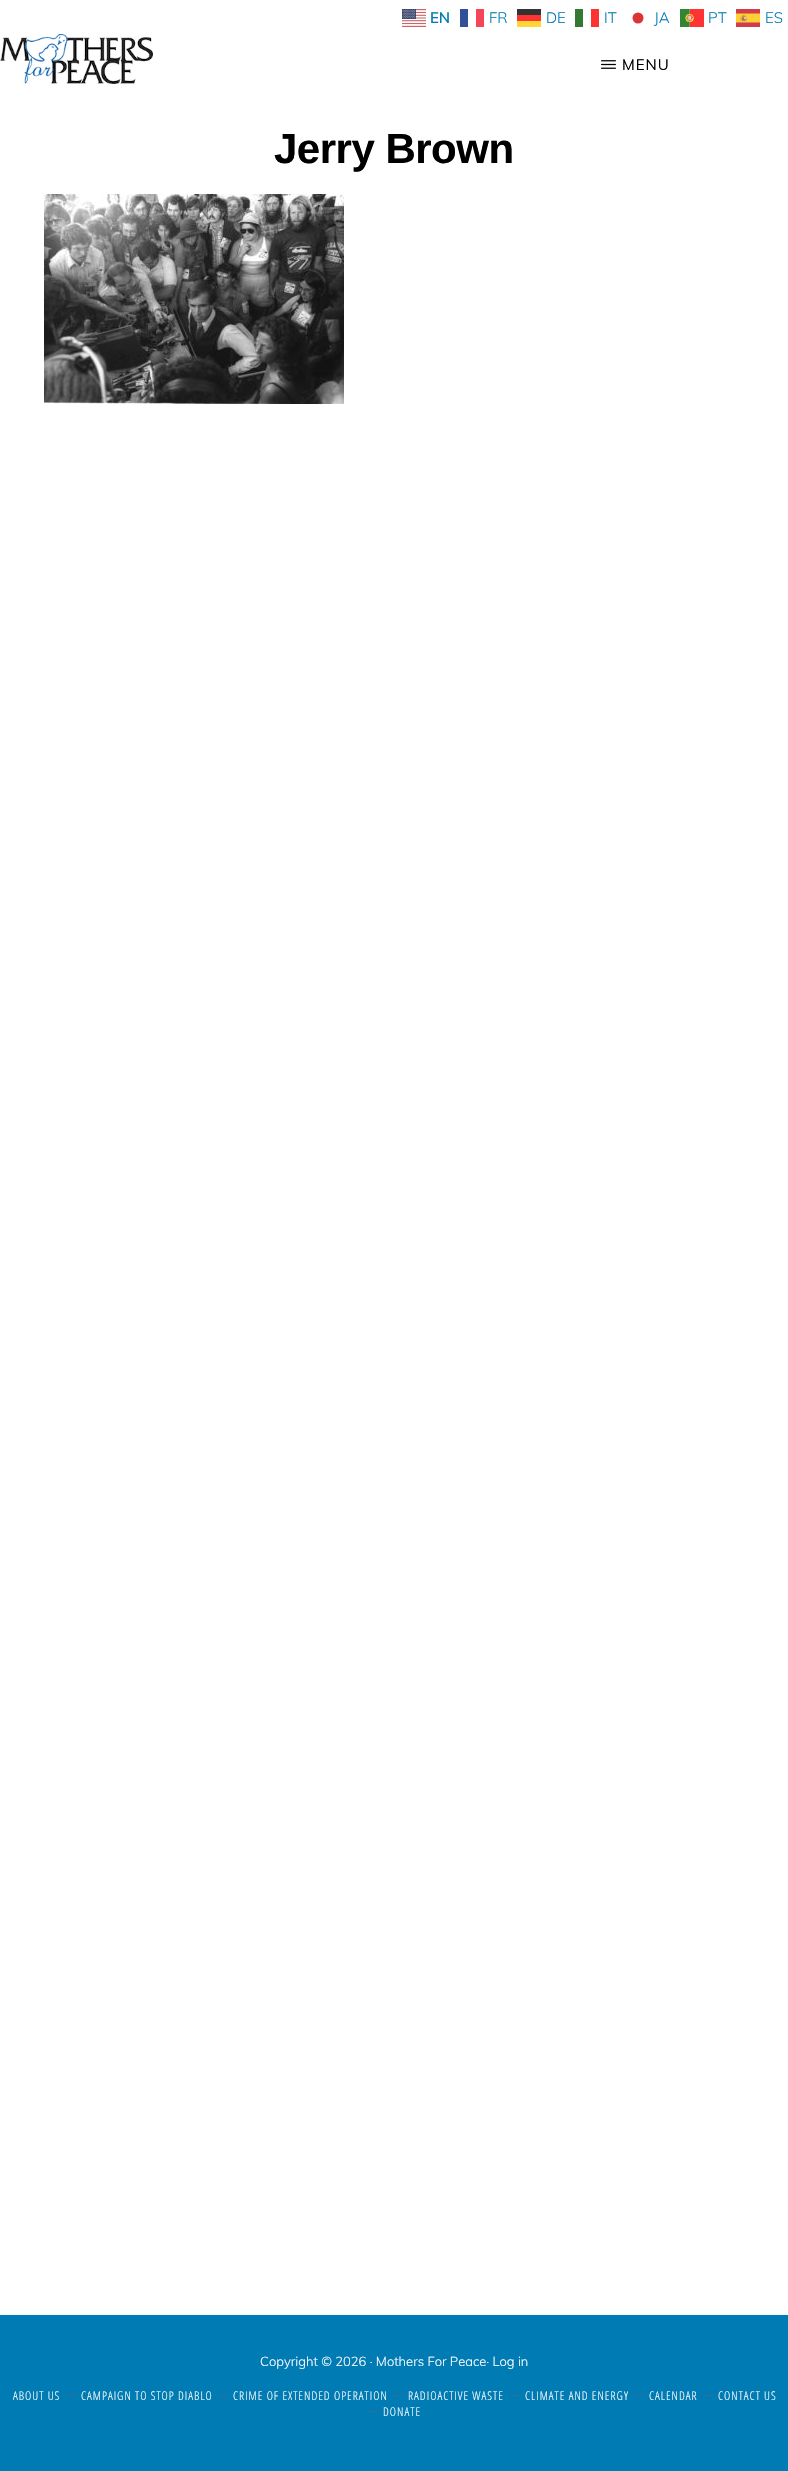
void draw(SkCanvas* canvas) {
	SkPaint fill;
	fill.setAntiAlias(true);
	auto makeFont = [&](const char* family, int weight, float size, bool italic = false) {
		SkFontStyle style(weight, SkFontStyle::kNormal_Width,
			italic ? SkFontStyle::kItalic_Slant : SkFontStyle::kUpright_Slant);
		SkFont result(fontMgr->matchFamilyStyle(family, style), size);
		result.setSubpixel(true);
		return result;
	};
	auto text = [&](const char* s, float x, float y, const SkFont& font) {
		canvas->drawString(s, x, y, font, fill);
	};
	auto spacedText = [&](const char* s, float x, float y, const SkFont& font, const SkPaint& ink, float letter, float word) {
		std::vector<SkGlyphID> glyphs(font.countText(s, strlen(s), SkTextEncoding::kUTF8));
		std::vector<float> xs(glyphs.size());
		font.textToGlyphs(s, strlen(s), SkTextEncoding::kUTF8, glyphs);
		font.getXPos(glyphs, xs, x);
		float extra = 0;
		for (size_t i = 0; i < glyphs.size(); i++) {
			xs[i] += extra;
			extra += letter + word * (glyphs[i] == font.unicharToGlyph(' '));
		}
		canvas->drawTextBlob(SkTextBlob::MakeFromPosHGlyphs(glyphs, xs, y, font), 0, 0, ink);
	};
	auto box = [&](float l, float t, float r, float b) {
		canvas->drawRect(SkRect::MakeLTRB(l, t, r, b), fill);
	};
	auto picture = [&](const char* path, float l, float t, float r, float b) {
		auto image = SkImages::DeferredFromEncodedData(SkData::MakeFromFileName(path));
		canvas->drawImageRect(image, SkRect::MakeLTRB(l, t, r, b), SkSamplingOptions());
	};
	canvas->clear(0xFFFFFFFF);
	picture("image0.png", 402, 9, 426, 27);
	fill.setColor(0xFF335199);
	box(460, 9, 468, 27);
	fill.setColor(0xFFF54659);
	box(476, 9, 484, 27);
	fill.setColor(0xFFFFD633);
	box(517, 21, 541, 27);
	fill.setColor(0xFF333333);
	box(517, 9, 541, 15);
	fill.setColor(0xFFFF3333);
	box(517, 15, 541, 21);
	fill.setColor(0xFF337933);
	box(575, 9, 583, 27);
	fill.setColor(0xFFFD3333);
	box(591, 9, 599, 27);
	fill.setColor(0xFFDC3333);
	canvas->drawCircle(638, 18, 5.5f, fill);
	picture("image1.png", 680, 9, 704, 27);
	picture("image2.png", 736, 9, 760, 27);
	picture("image3.png", 0, 34, 153, 84);
	picture("image4.png", 601, 60, 616, 69);
	picture("image5.png", 44, 194, 344, 404);
	fill.setColor(0xFF007BB3);
	box(0, 2315, 788, 2471);
	auto font1 = makeFont("Muli", 600, 15);
	text("EN", 430, 23, font1);
	auto font2 = makeFont("Muli", 300, 15);
	text("FR", 489, 23, font2);
	text("DE", 546, 23, font2);
	text("IT", 604, 23, font2);
	text("JA", 654, 23, font2);
	text("PT", 708, 23, font2);
	text("ES", 765, 23, font2);
	auto font3 = makeFont("Muli", 400, 15);
	fill.setColor(0xFF000000);
	spacedText("MENU", 622, 70, font3, fill, 1, 0);
	auto font4 = makeFont("Liberation Sans", 700, 42);
	spacedText("Jerry Brown", 274, 163, font4, fill, -0.5f, 0);
	auto font5 = makeFont("Muli", 300, 13);
	fill.setColor(0xFFFFFFFF);
	text("Copyright © 2026 · Mothers For Peace· Log in", 260, 2366, font5);
	auto font6 = makeFont("Open Sans Condensed", 300, 12);
	spacedText("ABOUT US", 13, 2400, font6, fill, 1, 0);
	auto font7 = makeFont("Muli", 300, 10);
	fill.setColor(0xFF666666);
	text("—", 66, 2398, font7);
	fill.setColor(0xFFFFFFFF);
	spacedText("CAMPAIGN TO STOP DIABLO", 81, 2400, font6, fill, 1, 0);
	fill.setColor(0xFF666666);
	text("—", 218, 2398, font7);
	fill.setColor(0xFFFFFFFF);
	spacedText("CRIME OF EXTENDED OPERATION", 233, 2400, font6, fill, 1, 0);
	fill.setColor(0xFF666666);
	text("—", 393, 2398, font7);
	fill.setColor(0xFFFFFFFF);
	spacedText("RADIOACTIVE WASTE", 408, 2400, font6, fill, 1, 0);
	fill.setColor(0xFF666666);
	text("—", 510, 2398, font7);
	fill.setColor(0xFFFFFFFF);
	spacedText("CLIMATE AND ENERGY", 525, 2400, font6, fill, 1, 0);
	fill.setColor(0xFF666666);
	text("—", 634, 2398, font7);
	fill.setColor(0xFFFFFFFF);
	spacedText("CALENDAR", 649, 2400, font6, fill, 1, 0);
	fill.setColor(0xFF666666);
	text("—", 703, 2398, font7);
	fill.setColor(0xFFFFFFFF);
	spacedText("CONTACT US", 718, 2400, font6, fill, 1, 0);
	fill.setColor(0xFF666666);
	text("—", 368, 2414, font7);
	fill.setColor(0xFFFFFFFF);
	spacedText("DONATE", 383, 2416, font6, fill, 1, 0);
}
